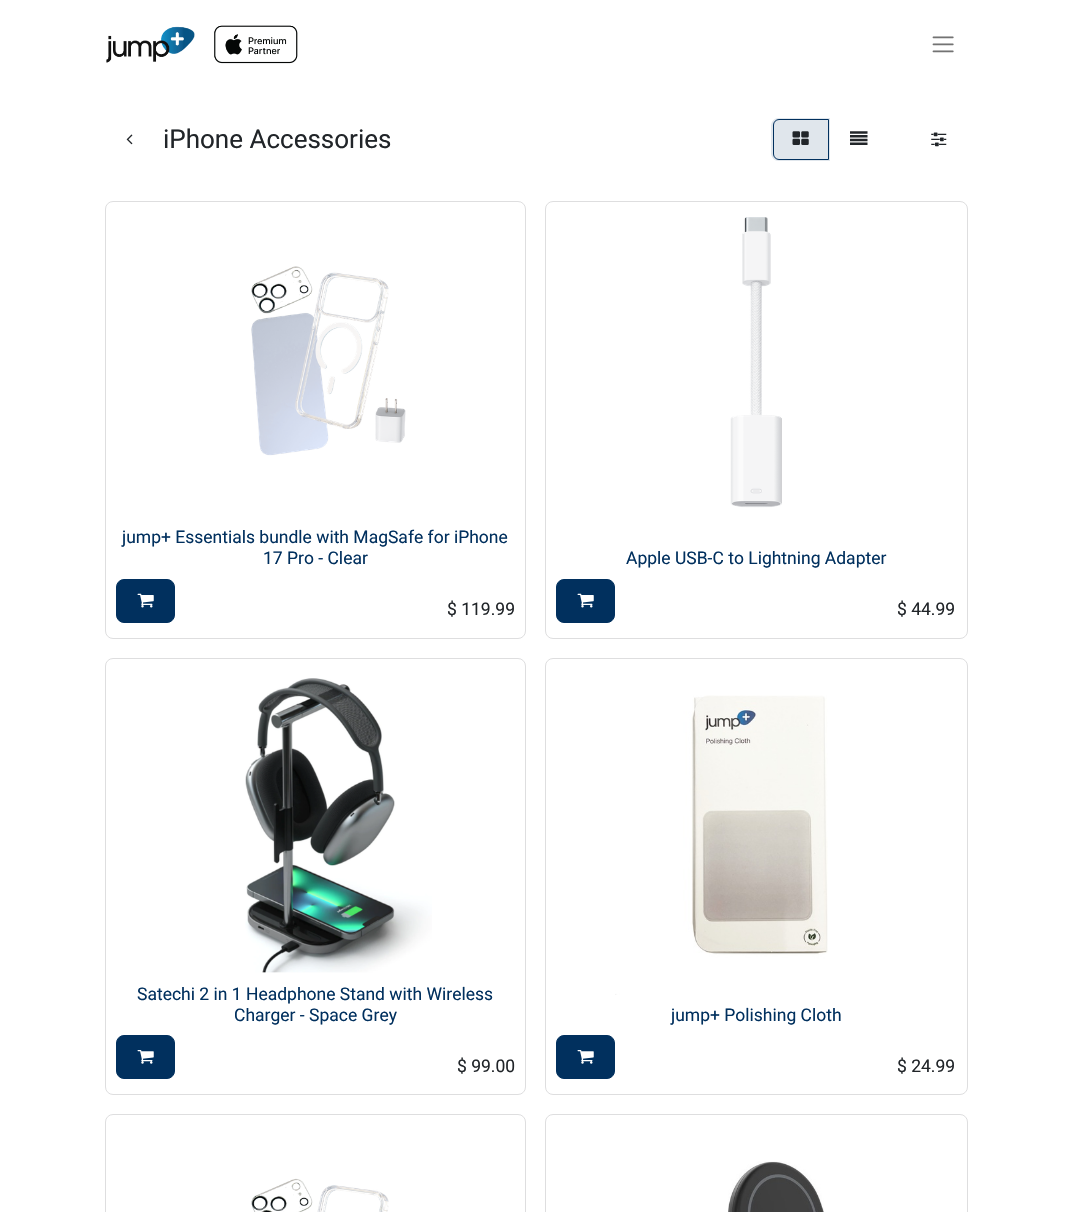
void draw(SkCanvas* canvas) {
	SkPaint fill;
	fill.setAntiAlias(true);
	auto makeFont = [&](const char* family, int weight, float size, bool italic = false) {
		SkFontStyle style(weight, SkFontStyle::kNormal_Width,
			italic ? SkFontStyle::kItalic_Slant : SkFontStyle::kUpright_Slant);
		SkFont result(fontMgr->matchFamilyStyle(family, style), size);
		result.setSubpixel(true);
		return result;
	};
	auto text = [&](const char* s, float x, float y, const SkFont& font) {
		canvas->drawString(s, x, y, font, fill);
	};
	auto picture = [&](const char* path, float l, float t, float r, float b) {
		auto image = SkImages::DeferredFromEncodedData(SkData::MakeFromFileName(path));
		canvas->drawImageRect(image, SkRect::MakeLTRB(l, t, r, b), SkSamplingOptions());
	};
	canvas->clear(0xFFFFFFFF);
	picture("image0.png", 106, 25, 298, 64);
	picture("image1.png", 932, 36, 954, 53);
	picture("image2.png", 126, 134, 133, 145);
	fill.setColor(0xFFE0E6EC);
	canvas->drawPath(SkPathBuilder().moveTo(779, 118).lineTo(830, 118).lineTo(830, 161).lineTo(779, 161).cubicTo(774.5f, 161, 771, 157.5f, 771, 153).lineTo(771, 126).cubicTo(771, 121.5f, 774.5f, 118, 779, 118).close().detach(), fill);
	fill.setStyle(SkPaint::kStroke_Style);
	fill.setStrokeWidth(1);
	fill.setColor(0xFF01305E);
	canvas->drawPath(SkPathBuilder().moveTo(779, 119.5f).lineTo(828.5f, 119.5f).lineTo(828.5f, 159.5f).lineTo(779, 159.5f).cubicTo(776, 159.5f, 773.5f, 157, 773.5f, 154).lineTo(773.5f, 125).cubicTo(773.5f, 122, 776, 119.5f, 779, 119.5f).close().detach(), fill);
	picture("image3.png", 792, 131, 809, 145);
	picture("image4.png", 850, 131, 868, 145);
	picture("image5.png", 931, 132, 947, 147);
	fill.setColor(0xFFDEDEDF);
	canvas->drawRoundRect(SkRect::MakeLTRB(105.5f, 201.5f, 525.5f, 638.5f), 7.5f, 7.5f, fill);
	picture("image6.png", 251, 266, 406, 456);
	fill.setStyle(SkPaint::kFill_Style);
	fill.setColor(0xFF01305E);
	canvas->drawRoundRect(SkRect::MakeLTRB(116.5f, 579.5f, 174.5f, 622.5f), 7.5f, 7.5f, fill);
	fill.setStyle(SkPaint::kStroke_Style);
	canvas->drawRoundRect(SkRect::MakeLTRB(116.5f, 579.5f, 174.5f, 622.5f), 7.5f, 7.5f, fill);
	picture("image7.png", 137, 593, 154, 608);
	fill.setColor(0xFFDEDEDF);
	canvas->drawRoundRect(SkRect::MakeLTRB(545.5f, 201.5f, 967.5f, 638.5f), 7.5f, 7.5f, fill);
	picture("image8.png", 730, 217, 782, 508);
	fill.setStyle(SkPaint::kFill_Style);
	fill.setColor(0xFF01305E);
	canvas->drawRoundRect(SkRect::MakeLTRB(556.5f, 579.5f, 614.5f, 622.5f), 7.5f, 7.5f, fill);
	fill.setStyle(SkPaint::kStroke_Style);
	canvas->drawRoundRect(SkRect::MakeLTRB(556.5f, 579.5f, 614.5f, 622.5f), 7.5f, 7.5f, fill);
	picture("image7.png", 577, 593, 594, 608);
	fill.setColor(0xFFDEDEDF);
	canvas->drawRoundRect(SkRect::MakeLTRB(105.5f, 658.5f, 525.5f, 1094.5f), 7.5f, 7.5f, fill);
	picture("image9.png", 245, 678, 432, 973);
	fill.setStyle(SkPaint::kFill_Style);
	fill.setColor(0xFF01305E);
	canvas->drawRoundRect(SkRect::MakeLTRB(116.5f, 1035.5f, 174.5f, 1078.5f), 7.5f, 7.5f, fill);
	fill.setStyle(SkPaint::kStroke_Style);
	canvas->drawRoundRect(SkRect::MakeLTRB(116.5f, 1035.5f, 174.5f, 1078.5f), 7.5f, 7.5f, fill);
	picture("image10.png", 137, 1050, 154, 1064);
	fill.setColor(0xFFDEDEDF);
	canvas->drawRoundRect(SkRect::MakeLTRB(545.5f, 658.5f, 967.5f, 1094.5f), 7.5f, 7.5f, fill);
	picture("image11.png", 615, 695, 828, 995);
	fill.setStyle(SkPaint::kFill_Style);
	fill.setColor(0xFF01305E);
	canvas->drawRoundRect(SkRect::MakeLTRB(556.5f, 1035.5f, 614.5f, 1078.5f), 7.5f, 7.5f, fill);
	fill.setStyle(SkPaint::kStroke_Style);
	canvas->drawRoundRect(SkRect::MakeLTRB(556.5f, 1035.5f, 614.5f, 1078.5f), 7.5f, 7.5f, fill);
	picture("image10.png", 577, 1050, 594, 1064);
	fill.setColor(0xFFDEDEDF);
	canvas->drawRoundRect(SkRect::MakeLTRB(105.5f, 1114.5f, 525.5f, 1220.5f), 7.5f, 7.5f, fill);
	picture("image12.png", 251, 1178, 389, 1212);
	canvas->drawRoundRect(SkRect::MakeLTRB(545.5f, 1114.5f, 967.5f, 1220.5f), 7.5f, 7.5f, fill);
	picture("image13.png", 728, 1161, 824, 1212);
	auto font1 = makeFont("Roboto", 400, 26);
	fill.setStyle(SkPaint::kFill_Style);
	fill.setColor(0xFF212529);
	text("iPhone Accessories", 163, 148, font1);
	auto font2 = makeFont("Roboto", 400, 17.5f);
	fill.setColor(0xFF01305E);
	text("jump+ Essentials bundle with MagSafe for iPhone", 122, 543, font2);
	text("17 Pro - Clear", 263, 564, font2);
	fill.setColor(0xFF212529);
	text("$ 119.99", 447, 615, font2);
	fill.setColor(0xFF01305E);
	text("Apple USB-C to Lightning Adapter", 626, 564, font2);
	fill.setColor(0xFF212529);
	text("$ 44.99", 897, 615, font2);
	fill.setColor(0xFF01305E);
	text("Satechi 2 in 1 Headphone Stand with Wireless", 137, 1000, font2);
	text("Charger - Space Grey", 234, 1021, font2);
	fill.setColor(0xFF212529);
	text("$ 99.00", 457, 1072, font2);
	fill.setColor(0xFF01305E);
	text("jump+ Polishing Cloth", 671, 1021, font2);
	fill.setColor(0xFF212529);
	text("$ 24.99", 897, 1072, font2);
}
